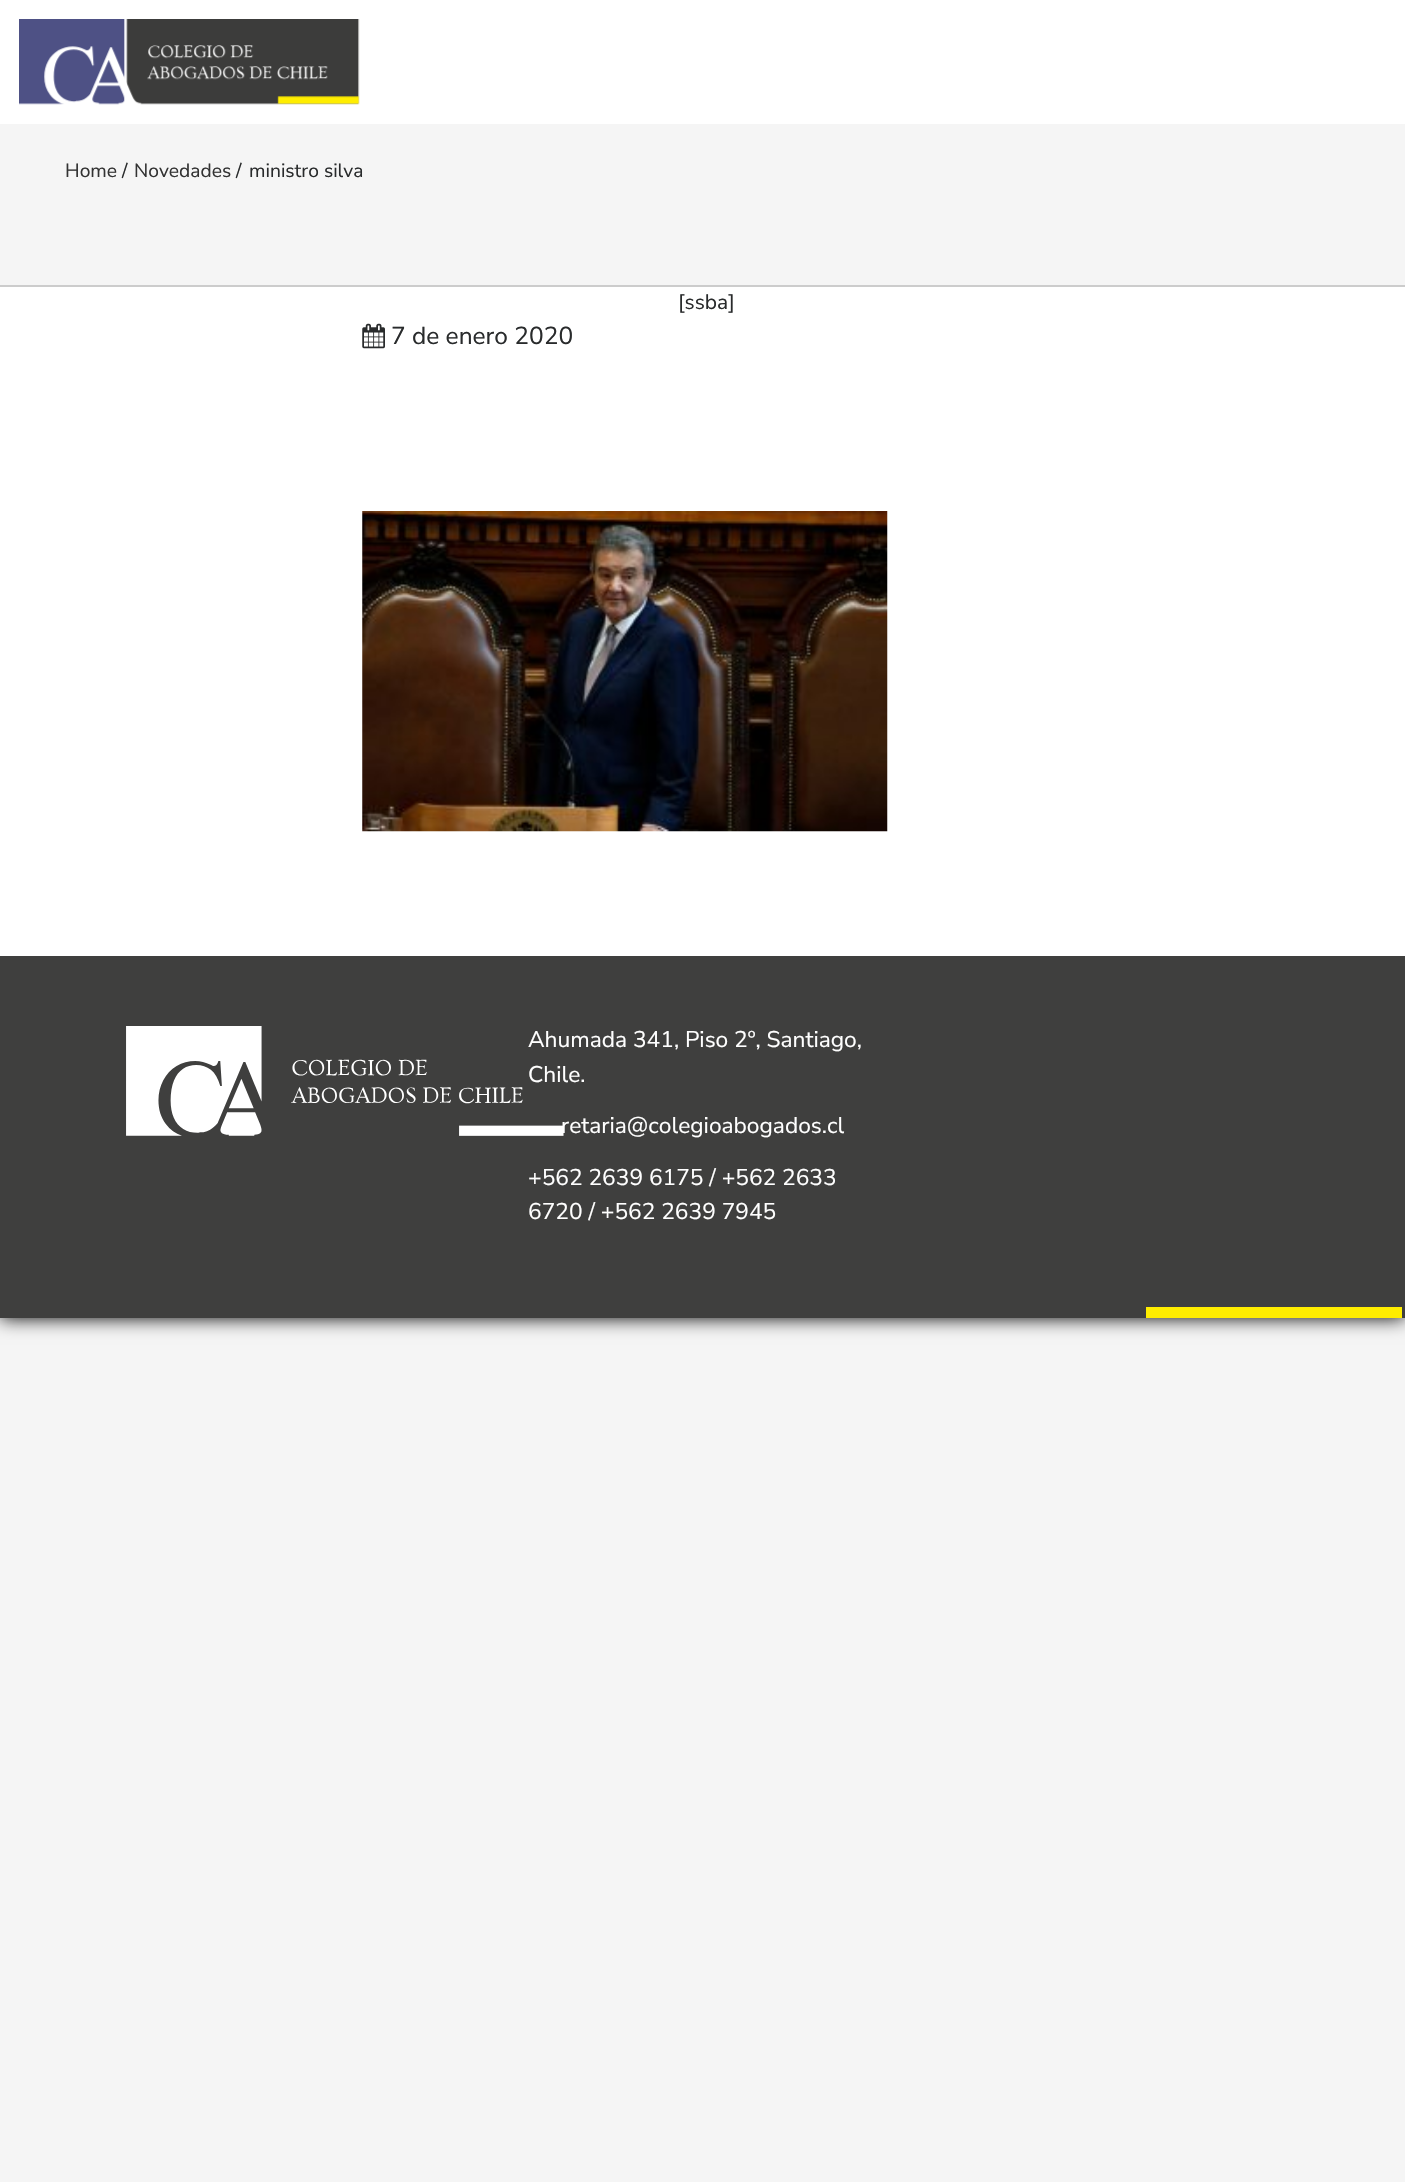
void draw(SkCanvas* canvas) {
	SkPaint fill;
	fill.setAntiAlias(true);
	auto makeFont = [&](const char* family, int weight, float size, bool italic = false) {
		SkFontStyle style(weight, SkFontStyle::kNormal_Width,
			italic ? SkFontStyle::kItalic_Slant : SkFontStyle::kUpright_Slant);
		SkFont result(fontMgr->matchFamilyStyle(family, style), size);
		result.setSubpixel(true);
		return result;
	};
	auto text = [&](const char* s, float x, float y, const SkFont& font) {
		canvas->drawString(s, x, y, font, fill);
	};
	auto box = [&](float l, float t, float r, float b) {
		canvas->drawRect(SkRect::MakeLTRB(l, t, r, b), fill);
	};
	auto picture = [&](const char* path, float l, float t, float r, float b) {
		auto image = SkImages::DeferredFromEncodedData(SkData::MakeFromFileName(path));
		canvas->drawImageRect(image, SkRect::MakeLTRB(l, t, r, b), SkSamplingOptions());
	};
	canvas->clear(0xFFF5F5F5);
	fill.setColor(0xFF000000);
	fill.setMaskFilter(SkMaskFilter::MakeBlur(kNormal_SkBlurStyle, 9));
	canvas->drawRect(SkRect::MakeLTRB(0, 0, 1405, 1318), fill);
	fill.setMaskFilter(nullptr);
	fill.setColor(0xFFFFFFFF);
	box(0, 287, 1405, 956);
	box(0, 0, 1405, 124);
	picture("image0.png", 19, 19, 360, 105);
	fill.setColor(0xFFF5F5F5);
	box(0, 124, 1405, 285);
	fill.setColor(0xFFCCCCCC);
	box(0, 285, 1405, 287);
	picture("image1.png", 362, 323, 385, 349);
	picture("image2.png", 362, 511, 888, 832);
	fill.setColor(0xFF3F3F3E);
	box(0, 956, 1405, 1318);
	fill.setColor(0xFFFFED00);
	box(1146, 1307, 1402, 1318);
	picture("image3.png", 126, 1026, 564, 1136);
	auto font1 = makeFont("Nunito Sans", 400, 19.25f);
	fill.setColor(0xFF333333);
	text("Home", 65, 177, font1);
	fill.setColor(0xFF292B2C);
	text("/", 122, 177, font1);
	fill.setColor(0xFF333333);
	text("Novedades", 134, 177, font1);
	fill.setColor(0xFF292B2C);
	text("/", 236, 177, font1);
	text("ministro silva", 249, 177, font1);
	auto font2 = makeFont("Nunito Sans", 400, 21);
	text("[ssba]", 678, 309, font2);
	auto font3 = makeFont("Nunito Sans", 400, 24.5f);
	text("7 de enero 2020", 391, 344, font3);
	auto font4 = makeFont("Nunito Sans", 400, 22.75f);
	fill.setColor(0xFFFFFFFF);
	text("Ahumada 341, Piso 2º, Santiago,", 528, 1047, font4);
	text("Chile.", 528, 1082, font4);
	text("retaria@colegioabogados.cl", 561, 1133, font4);
	text("+562 2639 6175 / +562 2633", 528, 1185, font4);
	text("6720 / +562 2639 7945", 528, 1219, font4);
}
